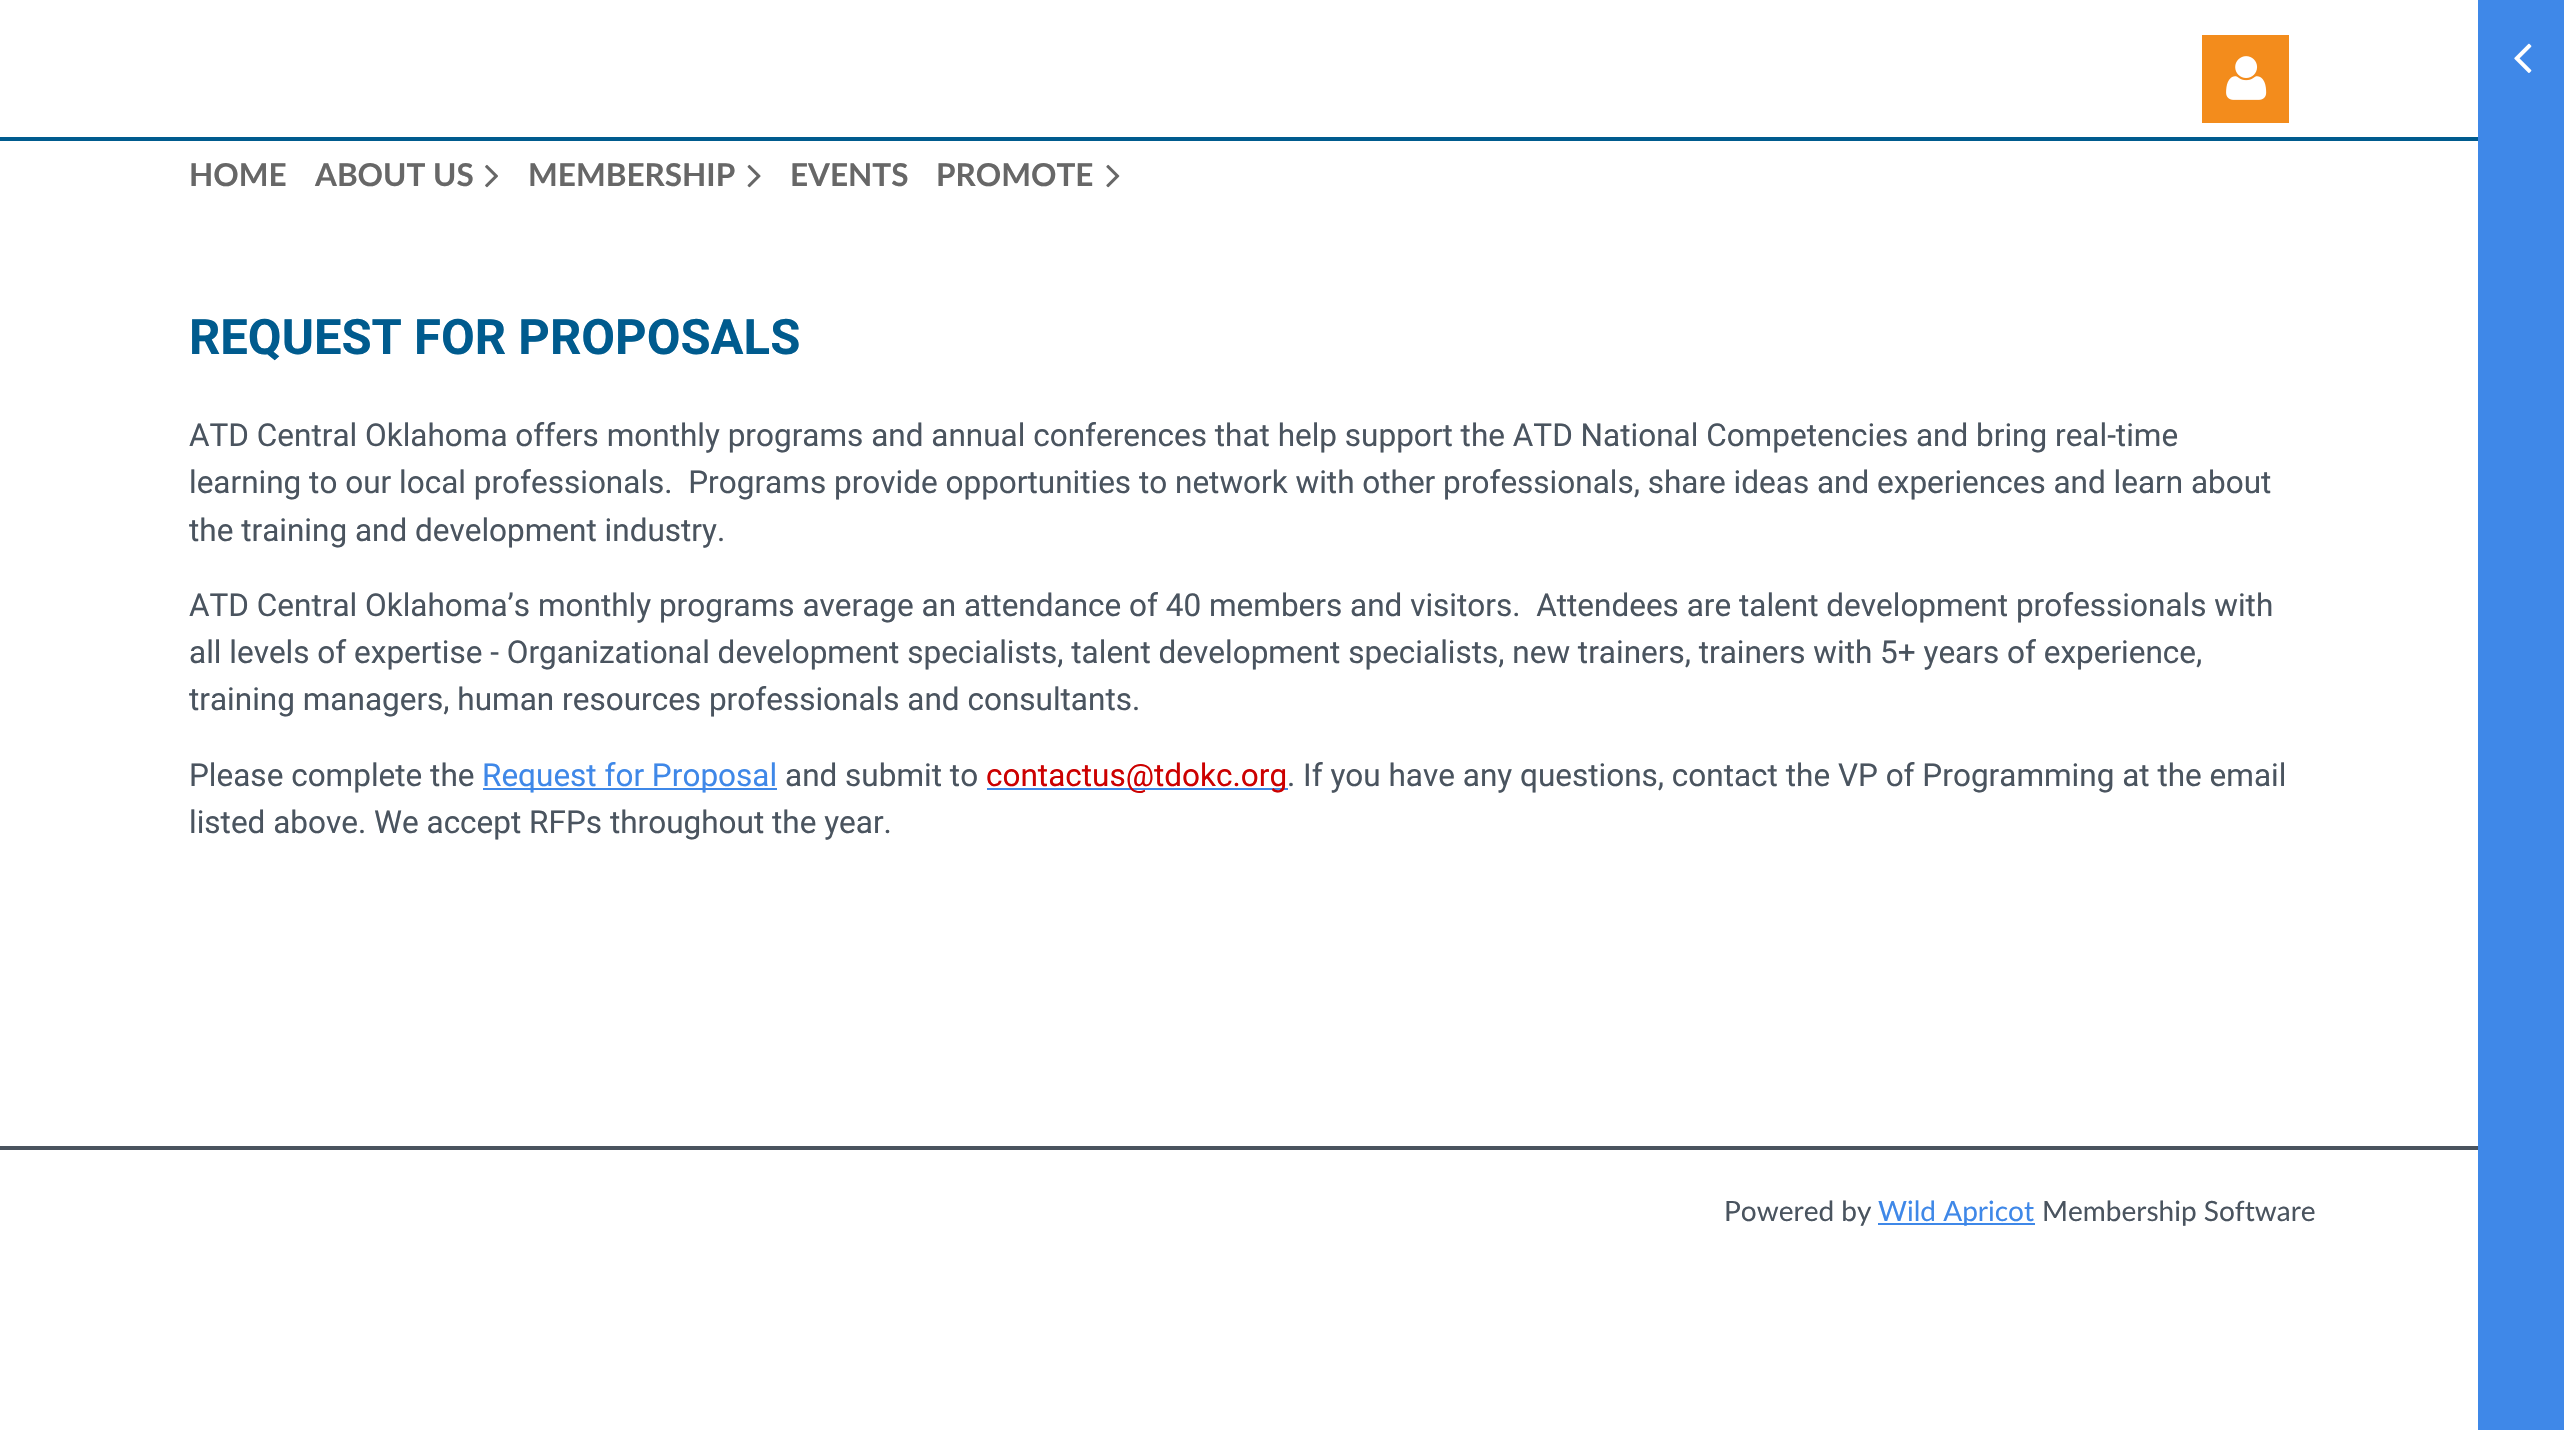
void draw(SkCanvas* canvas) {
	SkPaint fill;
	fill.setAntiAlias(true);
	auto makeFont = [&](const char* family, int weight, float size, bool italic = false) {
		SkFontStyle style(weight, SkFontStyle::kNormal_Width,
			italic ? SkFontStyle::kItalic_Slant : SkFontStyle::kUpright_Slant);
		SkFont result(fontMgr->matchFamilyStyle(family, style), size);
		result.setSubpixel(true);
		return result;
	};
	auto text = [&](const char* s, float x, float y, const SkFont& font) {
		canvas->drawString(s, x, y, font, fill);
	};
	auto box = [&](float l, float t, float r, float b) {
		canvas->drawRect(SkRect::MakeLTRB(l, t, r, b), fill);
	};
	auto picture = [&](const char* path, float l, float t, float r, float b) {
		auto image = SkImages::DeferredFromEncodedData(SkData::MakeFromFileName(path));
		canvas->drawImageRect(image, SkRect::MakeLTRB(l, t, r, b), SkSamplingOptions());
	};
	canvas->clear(0xFFFFFFFF);
	fill.setColor(0xFFF38C1C);
	box(2202, 35, 2289, 123);
	picture("image0.png", 2226, 56, 2267, 100);
	fill.setColor(0xFF005B8E);
	box(0, 137, 2478, 141);
	picture("image1.png", 485, 164, 498, 188);
	picture("image2.png", 747, 164, 761, 188);
	picture("image3.png", 1106, 164, 1120, 188);
	fill.setColor(0xFF3F88E8);
	box(483, 788, 777, 790);
	box(987, 788, 1288, 790);
	fill.setColor(0xFF4A545F);
	box(0, 1146, 2478, 1150);
	fill.setColor(0xFF3F88E8);
	box(1878, 1223, 2035, 1225);
	box(2478, 0, 2564, 1430);
	picture("image4.png", 2514, 43, 2532, 73);
	auto font1 = makeFont("Lato", 700, 31.5f);
	fill.setColor(0xFF676767);
	text("HOME", 189, 186, font1);
	text("ABOUT US", 315, 186, font1);
	text("MEMBERSHIP", 528, 186, font1);
	text("EVENTS", 790, 186, font1);
	text("PROMOTE", 936, 186, font1);
	auto font2 = makeFont("Roboto", 700, 49);
	fill.setColor(0xFF005B8E);
	text("REQUEST FOR PROPOSALS", 189, 354, font2);
	auto font3 = makeFont("Roboto", 400, 31.5f);
	fill.setColor(0xFF4A545F);
	text("ATD Central Oklahoma offers monthly programs and annual conferences that help support the ATD National Competencies and bring real-time", 189, 446, font3);
	text("learning to our local professionals.  Programs provide opportunities to network with other professionals, share ideas and experiences and learn about", 189, 493, font3);
	text("the training and development industry.", 189, 541, font3);
	text("ATD Central Oklahoma’s monthly programs average an attendance of 40 members and visitors.  Attendees are talent development professionals with", 189, 616, font3);
	text("all levels of expertise - Organizational development specialists, talent development specialists, new trainers, trainers with 5+ years of experience,", 189, 663, font3);
	text("training managers, human resources professionals and consultants.", 189, 710, font3);
	text("Please complete the", 189, 786, font3);
	fill.setColor(0xFF3F88E8);
	text("Request for Proposal", 482, 786, font3);
	fill.setColor(0xFF4A545F);
	text("and submit to", 785, 786, font3);
	fill.setColor(0xFFCC0000);
	text("contactus@tdokc.org", 986, 786, font3);
	fill.setColor(0xFF4A545F);
	text(". If you have any questions, contact the VP of Programming at the email", 1287, 786, font3);
	text("listed above. We accept RFPs throughout the year.", 189, 833, font3);
	auto font4 = makeFont("Lato", 400, 28);
	text("Powered by", 1724, 1221, font4);
	fill.setColor(0xFF3F88E8);
	text("Wild Apricot", 1878, 1221, font4);
	fill.setColor(0xFF4A545F);
	text("Membership Software", 2042, 1221, font4);
}
